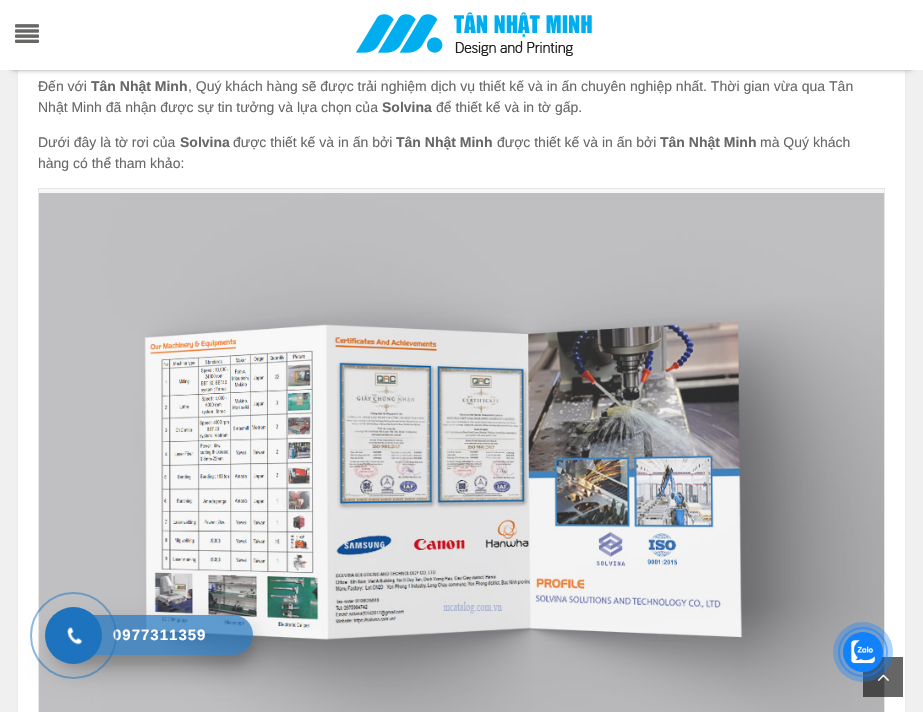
void draw(SkCanvas* canvas) {
	SkPaint fill;
	fill.setAntiAlias(true);
	auto makeFont = [&](const char* family, int weight, float size, bool italic = false) {
		SkFontStyle style(weight, SkFontStyle::kNormal_Width,
			italic ? SkFontStyle::kItalic_Slant : SkFontStyle::kUpright_Slant);
		SkFont result(fontMgr->matchFamilyStyle(family, style), size);
		result.setSubpixel(true);
		return result;
	};
	auto text = [&](const char* s, float x, float y, const SkFont& font) {
		canvas->drawString(s, x, y, font, fill);
	};
	auto spacedText = [&](const char* s, float x, float y, const SkFont& font, const SkPaint& ink, float letter, float word) {
		std::vector<SkGlyphID> glyphs(font.countText(s, strlen(s), SkTextEncoding::kUTF8));
		std::vector<float> xs(glyphs.size());
		font.textToGlyphs(s, strlen(s), SkTextEncoding::kUTF8, glyphs);
		font.getXPos(glyphs, xs, x);
		float extra = 0;
		for (size_t i = 0; i < glyphs.size(); i++) {
			xs[i] += extra;
			extra += letter + word * (glyphs[i] == font.unicharToGlyph(' '));
		}
		canvas->drawTextBlob(SkTextBlob::MakeFromPosHGlyphs(glyphs, xs, y, font), 0, 0, ink);
	};
	auto box = [&](float l, float t, float r, float b) {
		canvas->drawRect(SkRect::MakeLTRB(l, t, r, b), fill);
	};
	auto roundBox = [&](float l, float t, float r, float b, float radius) {
		canvas->drawRoundRect(SkRect::MakeLTRB(l, t, r, b), radius, radius, fill);
	};
	auto picture = [&](const char* path, float l, float t, float r, float b) {
		auto image = SkImages::DeferredFromEncodedData(SkData::MakeFromFileName(path));
		canvas->drawImageRect(image, SkRect::MakeLTRB(l, t, r, b), SkSamplingOptions());
	};
	canvas->clear(0xFFF0F0F0);
	fill.setColor(0x12000000);
	fill.setMaskFilter(SkMaskFilter::MakeBlur(kNormal_SkBlurStyle, 1));
	canvas->drawRoundRect(SkRect::MakeLTRB(18, -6, 905, 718), 3, 3, fill);
	fill.setMaskFilter(nullptr);
	fill.setColor(0xFFFFFFFF);
	box(18, 70, 905, 712);
	fill.setColor(0xFF3C3C3C);
	fill.setMaskFilter(SkMaskFilter::MakeBlur(kNormal_SkBlurStyle, 3));
	canvas->drawRect(SkRect::MakeLTRB(12, 22, 911, 68), fill);
	fill.setMaskFilter(nullptr);
	fill.setColor(0xFFFFFFFF);
	box(0, 0, 923, 70);
	picture("image0.png", 15, 24, 39, 43);
	picture("image1.png", 356, 12, 592, 56);
	fill.setColor(0xFFF7F7F7);
	box(39, 189, 884, 193);
	fill.setStyle(SkPaint::kStroke_Style);
	fill.setStrokeWidth(1);
	fill.setColor(0xFFE6E6E6);
	canvas->drawRect(SkRect::MakeLTRB(38.5f, 188.5f, 884.5f, 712.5f), fill);
	picture("image2.png", 39, 193, 884, 712);
	canvas->save();
	canvas->clipPath(SkPathBuilder(SkPathFillType::kEvenOdd).moveTo(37, 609).lineTo(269, 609).lineTo(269, 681).lineTo(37, 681).close().moveTo(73, 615).lineTo(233, 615).cubicTo(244, 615, 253, 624, 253, 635).cubicTo(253, 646, 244, 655, 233, 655).lineTo(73, 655).cubicTo(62, 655, 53, 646, 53, 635).cubicTo(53, 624, 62, 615, 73, 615).close().detach(), true);
	fill.setStyle(SkPaint::kFill_Style);
	fill.setColor(0x1A000000);
	fill.setMaskFilter(SkMaskFilter::MakeBlur(kNormal_SkBlurStyle, 5));
	canvas->drawRoundRect(SkRect::MakeLTRB(53, 625, 253, 665), 20, 20, fill);
	fill.setMaskFilter(nullptr);
	canvas->restore();
	canvas->save();
	canvas->clipPath(SkPathBuilder(SkPathFillType::kEvenOdd).moveTo(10, 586).lineTo(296, 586).lineTo(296, 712).lineTo(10, 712).close().moveTo(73, 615).lineTo(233, 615).cubicTo(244, 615, 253, 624, 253, 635).cubicTo(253, 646, 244, 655, 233, 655).lineTo(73, 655).cubicTo(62, 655, 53, 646, 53, 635).cubicTo(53, 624, 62, 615, 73, 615).close().detach(), true);
	fill.setColor(0x40000000);
	fill.setMaskFilter(SkMaskFilter::MakeBlur(kNormal_SkBlurStyle, 14));
	canvas->drawRoundRect(SkRect::MakeLTRB(53, 629, 253, 669), 20, 20, fill);
	fill.setMaskFilter(nullptr);
	canvas->restore();
	fill.setColor(0xB31E73BE);
	roundBox(53, 615, 253, 655, 20);
	fill.setColor(0x99000000);
	box(863, 657, 903, 697);
	picture("image5.png", 877, 674, 889, 681);
	fill.setStyle(SkPaint::kStroke_Style);
	fill.setStrokeWidth(2);
	fill.setColor(0x801182FC);
	canvas->drawCircle(863, 652, 24, fill);
	fill.setStyle(SkPaint::kFill_Style);
	fill.setColor(0x571182FC);
	canvas->drawCircle(863, 652, 30, fill);
	fill.setColor(0xFF1182FC);
	canvas->drawCircle(863, 652, 20, fill);
	picture("image4.png", 850, 640, 875, 664);
	auto font1 = makeFont("Liberation Sans", 400, 14);
	fill.setColor(0xFF676765);
	text("Đến với", 38, 91, font1);
	auto font2 = makeFont("Liberation Sans", 700, 14);
	text("Tân Nhật Minh", 91, 91, font2);
	text(", Quý khách hàng sẽ được trải nghiệm dịch vụ thiết kế và in ấn chuyên nghiệp nhất. Thời gian vừa qua Tân", 188, 91, font1);
	text("Nhật Minh đã nhận được sự tin tưởng và lựa chọn của", 38, 112, font1);
	text("Solvina", 382, 112, font2);
	text("để thiết kế và in tờ gấp.", 436, 112, font1);
	text("Dưới đây là tờ rơi của", 38, 147, font1);
	text("Solvina", 180, 147, font2);
	text("được thiết kế và in ấn bởi", 233, 147, font1);
	text("Tân Nhật Minh", 396, 147, font2);
	text("được thiết kế và in ấn bởi", 497, 147, font1);
	text("Tân Nhật Minh", 660, 147, font2);
	text("mà Quý khách", 760, 147, font1);
	text("hàng có thể tham khảo:", 38, 168, font1);
	auto font3 = makeFont("Liberation Sans", 700, 15);
	fill.setColor(0xFFFFFFFF);
	spacedText("0977311359", 113, 640, font3, fill, 1, 0);
	fill.setStyle(SkPaint::kStroke_Style);
	fill.setColor(0x801E73BE);
	canvas->drawCircle(73.5f, 635.5f, 42.5f, fill);
	fill.setStyle(SkPaint::kFill_Style);
	fill.setColor(0xFF1E73BE);
	canvas->drawCircle(73.5f, 635.5f, 28.5f, fill);
	picture("image3.png", 67, 627, 83, 645);
}
